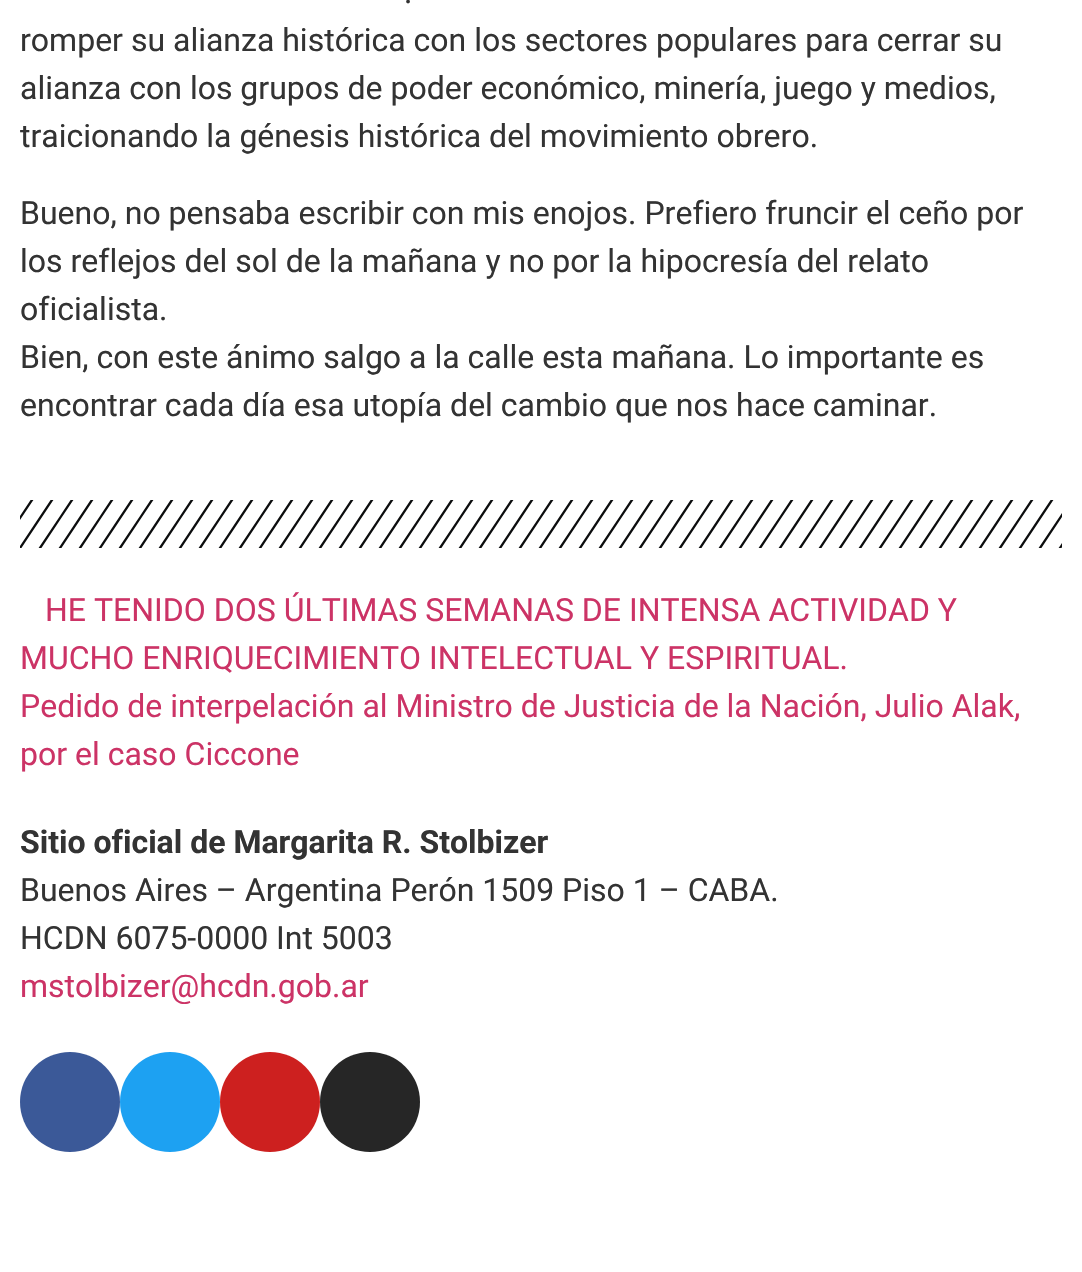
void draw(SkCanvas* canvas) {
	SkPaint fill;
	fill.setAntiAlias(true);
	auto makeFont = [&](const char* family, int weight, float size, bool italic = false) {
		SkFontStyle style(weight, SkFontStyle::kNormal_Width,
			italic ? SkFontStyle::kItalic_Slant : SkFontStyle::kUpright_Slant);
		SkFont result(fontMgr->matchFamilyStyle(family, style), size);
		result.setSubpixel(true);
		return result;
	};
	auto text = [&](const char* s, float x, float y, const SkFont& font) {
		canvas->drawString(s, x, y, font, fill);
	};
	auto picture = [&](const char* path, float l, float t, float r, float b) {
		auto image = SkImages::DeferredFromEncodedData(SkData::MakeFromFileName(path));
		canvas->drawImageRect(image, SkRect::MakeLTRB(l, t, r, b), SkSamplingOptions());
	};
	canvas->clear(0xFFFFFFFF);
	picture("image0.png", 20, 500, 1062, 548);
	fill.setColor(0xFF3B5998);
	canvas->drawCircle(70, 1102, 50, fill);
	fill.setColor(0xFF1DA1F2);
	canvas->drawCircle(170, 1102, 50, fill);
	fill.setColor(0xFFCD201F);
	canvas->drawCircle(270, 1102, 50, fill);
	fill.setColor(0xFF262626);
	canvas->drawCircle(370, 1102, 50, fill);
	auto font1 = makeFont("Roboto", 400, 32);
	fill.setColor(0xFF333333);
	text(".", 404, 3, font1);
	text("romper su alianza histórica con los sectores populares para cerrar su", 20, 51, font1);
	text("alianza con los grupos de poder económico, minería, juego y medios,", 20, 99, font1);
	text("traicionando la génesis histórica del movimiento obrero.", 20, 147, font1);
	text("Bueno, no pensaba escribir con mis enojos. Prefiero fruncir el ceño por", 20, 224, font1);
	text("los reflejos del sol de la mañana y no por la hipocresía del relato", 20, 272, font1);
	text("oficialista.", 20, 320, font1);
	text("Bien, con este ánimo salgo a la calle esta mañana. Lo importante es", 20, 368, font1);
	text("encontrar cada día esa utopía del cambio que nos hace caminar.", 20, 416, font1);
	fill.setColor(0xFFCC3366);
	text("HE TENIDO DOS ÚLTIMAS SEMANAS DE INTENSA ACTIVIDAD Y", 45, 621, font1);
	text("MUCHO ENRIQUECIMIENTO INTELECTUAL Y ESPIRITUAL.", 20, 669, font1);
	text("Pedido de interpelación al Ministro de Justicia de la Nación, Julio Alak,", 20, 717, font1);
	text("por el caso Ciccone", 20, 765, font1);
	auto font2 = makeFont("Roboto", 700, 32);
	fill.setColor(0xFF333333);
	text("Sitio oficial de Margarita R. Stolbizer", 20, 853, font2);
	text("Buenos Aires – Argentina Perón 1509 Piso 1 – CABA.", 20, 901, font1);
	text("HCDN 6075-0000 Int 5003", 20, 949, font1);
	fill.setColor(0xFFCC3366);
	text("mstolbizer@hcdn.gob.ar", 20, 997, font1);
}
